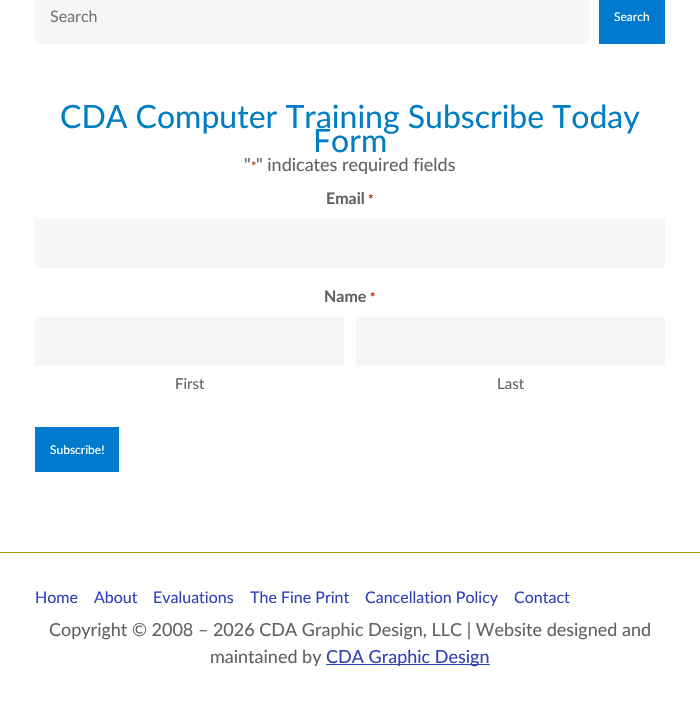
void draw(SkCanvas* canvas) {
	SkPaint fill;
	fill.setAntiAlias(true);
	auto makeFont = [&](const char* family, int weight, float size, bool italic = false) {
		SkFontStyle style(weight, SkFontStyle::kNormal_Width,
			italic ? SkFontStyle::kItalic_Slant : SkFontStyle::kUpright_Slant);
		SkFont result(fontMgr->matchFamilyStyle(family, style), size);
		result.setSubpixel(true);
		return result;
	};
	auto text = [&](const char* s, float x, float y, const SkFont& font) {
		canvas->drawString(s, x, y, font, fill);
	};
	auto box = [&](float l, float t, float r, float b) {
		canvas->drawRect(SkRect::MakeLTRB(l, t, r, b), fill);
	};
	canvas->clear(0xFFFFFFFF);
	fill.setColor(0xFFF6F6F6);
	box(35, 0, 589, 44);
	fill.setColor(0xFF007ACC);
	box(599, 0, 665, 44);
	fill.setColor(0xFFF6F6F6);
	box(35, 219, 665, 268);
	box(35, 317, 344, 366);
	box(356, 317, 665, 366);
	fill.setColor(0xFF007ACC);
	box(35, 427, 119, 472);
	fill.setColor(0xFFAD9600);
	box(0, 552, 700, 553);
	fill.setColor(0xFF2E41B7);
	box(326, 664, 490, 665);
	auto font1 = makeFont("Lato", 400, 16);
	fill.setColor(0xFF757575);
	text("Search", 50, 22, font1);
	auto font2 = makeFont("Lato", 400, 12);
	fill.setColor(0xFFFFFFFF);
	text("Search", 614, 21, font2);
	auto font3 = makeFont("Lato", 400, 32);
	fill.setColor(0xFF007DC3);
	text("CDA Computer Training Subscribe Today", 60, 128, font3);
	text("Form", 313, 152, font3);
	auto font4 = makeFont("Lato", 400, 18);
	fill.setColor(0xFF616161);
	text("\"", 244, 171, font4);
	text("\" indicates required fields", 256, 171, font4);
	auto font5 = makeFont("Lato", 400, 13);
	fill.setColor(0xFFC02B0A);
	text("*", 251, 171, font5);
	auto font6 = makeFont("Lato", 700, 16);
	fill.setColor(0xFF616161);
	text("Email", 326, 204, font6);
	auto font7 = makeFont("Lato", 700, 13);
	fill.setColor(0xFFC02B0A);
	text("*", 368, 204, font7);
	fill.setColor(0xFF616161);
	text("Name", 324, 302, font6);
	fill.setColor(0xFFC02B0A);
	text("*", 370, 302, font7);
	auto font8 = makeFont("Lato", 400, 15);
	fill.setColor(0xFF616161);
	text("First", 175, 389, font8);
	text("Last", 497, 389, font8);
	fill.setColor(0xFFFFFFFF);
	text("Subscribe!", 50, 454, font2);
	fill.setColor(0xFF2E41B7);
	text("Home", 35, 603, font1);
	text("About", 94, 603, font1);
	text("Evaluations", 153, 603, font1);
	text("The Fine Print", 250, 603, font1);
	text("Cancellation Policy", 365, 603, font1);
	text("Contact", 514, 603, font1);
	fill.setColor(0xFF616161);
	text("Copyright © 2008 – 2026 CDA Graphic Design, LLC | Website designed and", 49, 636, font4);
	text("maintained by", 210, 663, font4);
	fill.setColor(0xFF2E41B7);
	text("CDA Graphic Design", 326, 663, font4);
}
